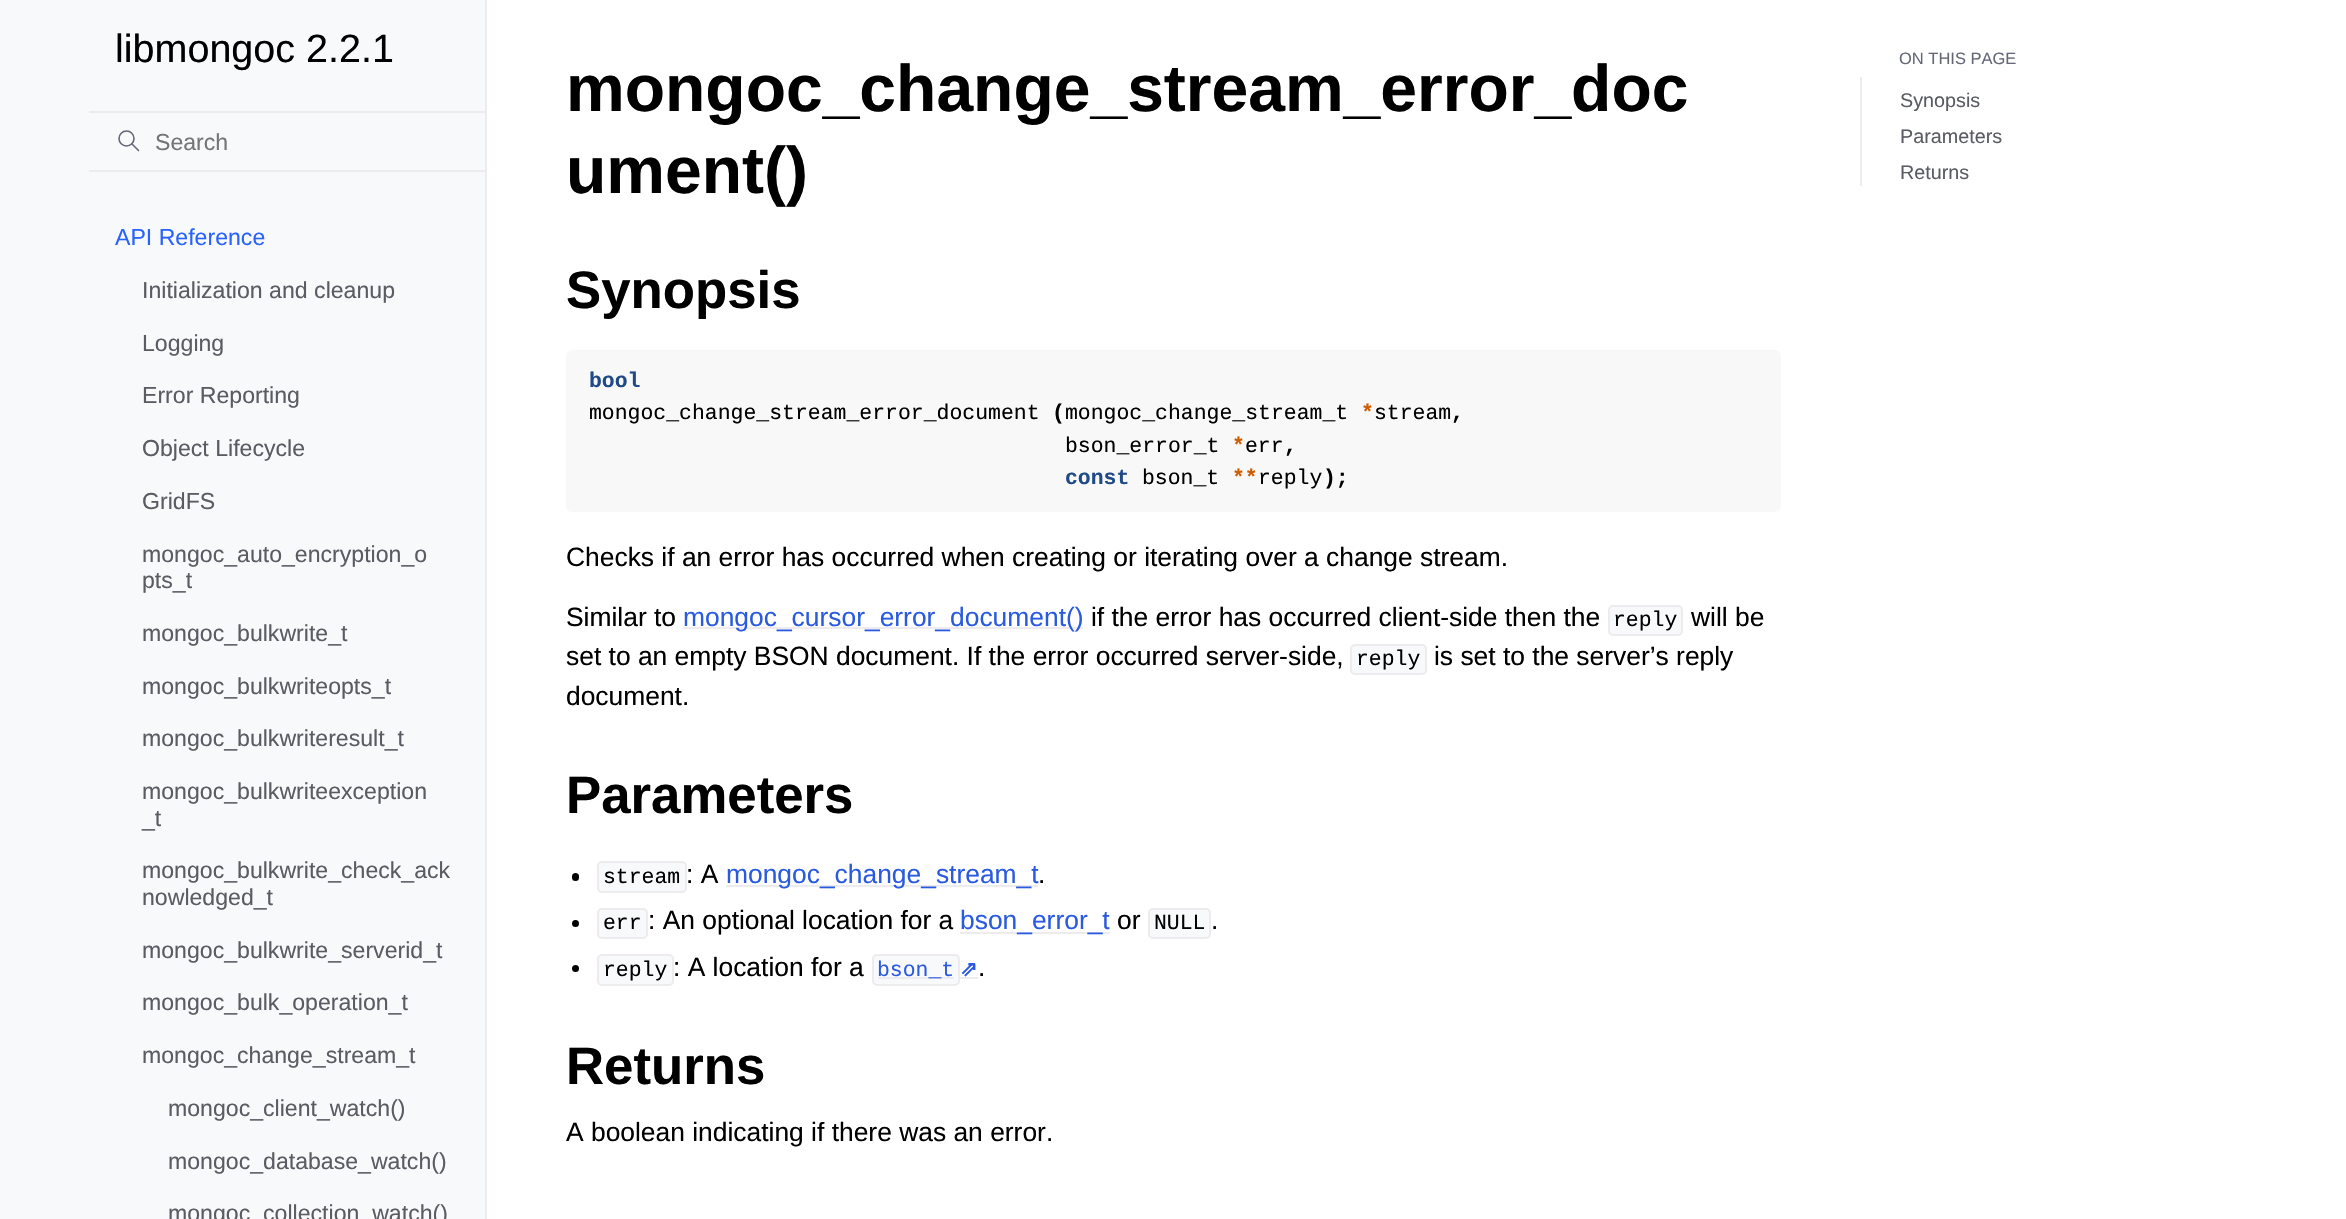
void draw(SkCanvas* canvas) {
	SkPaint fill;
	fill.setAntiAlias(true);
	auto makeFont = [&](const char* family, int weight, float size, bool italic = false) {
		SkFontStyle style(weight, SkFontStyle::kNormal_Width,
			italic ? SkFontStyle::kItalic_Slant : SkFontStyle::kUpright_Slant);
		SkFont result(fontMgr->matchFamilyStyle(family, style), size);
		result.setSubpixel(true);
		return result;
	};
	auto text = [&](const char* s, float x, float y, const SkFont& font) {
		canvas->drawString(s, x, y, font, fill);
	};
	auto box = [&](float l, float t, float r, float b) {
		canvas->drawRect(SkRect::MakeLTRB(l, t, r, b), fill);
	};
	auto roundBox = [&](float l, float t, float r, float b, float radius) {
		canvas->drawRoundRect(SkRect::MakeLTRB(l, t, r, b), radius, radius, fill);
	};
	canvas->clear(0xFFFFFFFF);
	fill.setColor(0xFFF8F9FB);
	box(0, 0, 485, 1219);
	fill.setColor(0xFFEEEBEE);
	box(485, 0, 487, 1219);
	fill.setStyle(SkPaint::kStroke_Style);
	fill.setStrokeWidth(1.6f);
	fill.setColor(0xFF646776);
	canvas->drawCircle(126.5f, 138.5f, 7.5f, fill);
	fill.setStrokeCap(SkPaint::kRound_Cap);
	fill.setStrokeJoin(SkPaint::kRound_Join);
	canvas->drawPath(SkPathBuilder().moveTo(138.5f, 150.5f).lineTo(132, 144).detach(), fill);
	fill.setStyle(SkPaint::kFill_Style);
	fill.setColor(0xFFEEEBEE);
	box(89, 111, 485, 113);
	box(89, 170, 485, 172);
	fill.setColor(0xFFF8F8F8);
	roundBox(566, 350, 1781, 512, 6);
	fill.setColor(0xFFEEEBEE);
	box(683, 627, 1083, 629);
	fill.setColor(0xFFF8F9FB);
	canvas->drawRoundRect(SkRect::MakeLTRB(1609, 606, 1682, 635), 4, 4, fill);
	fill.setStyle(SkPaint::kStroke_Style);
	fill.setStrokeWidth(2);
	fill.setStrokeCap(SkPaint::kButt_Cap);
	fill.setStrokeJoin(SkPaint::kMiter_Join);
	fill.setColor(0xFFEEEBEE);
	canvas->drawRoundRect(SkRect::MakeLTRB(1609, 606, 1682, 635), 4, 4, fill);
	fill.setStyle(SkPaint::kFill_Style);
	fill.setColor(0xFFF8F9FB);
	canvas->drawRoundRect(SkRect::MakeLTRB(1351, 645, 1426, 674), 4, 4, fill);
	fill.setStyle(SkPaint::kStroke_Style);
	fill.setColor(0xFFEEEBEE);
	canvas->drawRoundRect(SkRect::MakeLTRB(1351, 645, 1426, 674), 4, 4, fill);
	fill.setStyle(SkPaint::kFill_Style);
	fill.setColor(0xFF000000);
	roundBox(572, 873, 579, 881, 3.5f);
	fill.setColor(0xFFF8F9FB);
	canvas->drawRoundRect(SkRect::MakeLTRB(598, 862, 686, 892), 4, 4, fill);
	fill.setStyle(SkPaint::kStroke_Style);
	fill.setColor(0xFFEEEBEE);
	canvas->drawRoundRect(SkRect::MakeLTRB(598, 862, 686, 892), 4, 4, fill);
	fill.setStyle(SkPaint::kFill_Style);
	box(726, 885, 1038, 887);
	fill.setColor(0xFF000000);
	canvas->drawCircle(575.5f, 923.5f, 3.5f, fill);
	fill.setColor(0xFFF8F9FB);
	canvas->drawRoundRect(SkRect::MakeLTRB(598, 909, 647, 938), 4, 4, fill);
	fill.setStyle(SkPaint::kStroke_Style);
	fill.setColor(0xFFEEEBEE);
	canvas->drawRoundRect(SkRect::MakeLTRB(598, 909, 647, 938), 4, 4, fill);
	fill.setStyle(SkPaint::kFill_Style);
	box(960, 932, 1110, 934);
	fill.setColor(0xFFF8F9FB);
	canvas->drawRoundRect(SkRect::MakeLTRB(1149, 909, 1210, 938), 4, 4, fill);
	fill.setStyle(SkPaint::kStroke_Style);
	fill.setColor(0xFFEEEBEE);
	canvas->drawRoundRect(SkRect::MakeLTRB(1149, 909, 1210, 938), 4, 4, fill);
	fill.setStyle(SkPaint::kFill_Style);
	fill.setColor(0xFF000000);
	canvas->drawCircle(575.5f, 968.5f, 3.5f, fill);
	fill.setColor(0xFFF8F9FB);
	canvas->drawRoundRect(SkRect::MakeLTRB(598, 955, 673, 985), 4, 4, fill);
	fill.setStyle(SkPaint::kStroke_Style);
	fill.setColor(0xFFEEEBEE);
	canvas->drawRoundRect(SkRect::MakeLTRB(598, 955, 673, 985), 4, 4, fill);
	fill.setStyle(SkPaint::kFill_Style);
	fill.setColor(0xFFF8F9FB);
	canvas->drawRoundRect(SkRect::MakeLTRB(873, 955, 959, 985), 4, 4, fill);
	fill.setStyle(SkPaint::kStroke_Style);
	fill.setColor(0xFFEEEBEE);
	canvas->drawRoundRect(SkRect::MakeLTRB(873, 955, 959, 985), 4, 4, fill);
	fill.setStyle(SkPaint::kFill_Style);
	box(878, 977, 954, 979);
	box(960, 977, 978, 979);
	box(1860, 77, 1862, 186);
	auto font1 = makeFont("Liberation Sans", 400, 39.5f);
	fill.setColor(0xFF000000);
	text("libmongoc 2.2.1", 115, 62, font1);
	auto font2 = makeFont("Liberation Sans", 400, 23.1f);
	fill.setColor(0xFF757575);
	text("Search", 155, 150, font2);
	fill.setColor(0xFF2962FF);
	text("API Reference", 115, 245, font2);
	fill.setColor(0xFF5A5C63);
	text("Initialization and cleanup", 142, 298, font2);
	text("Logging", 142, 351, font2);
	text("Error Reporting", 142, 403, font2);
	text("Object Lifecycle", 142, 456, font2);
	text("GridFS", 142, 509, font2);
	text("mongoc_auto_encryption_o", 142, 562, font2);
	text("pts_t", 142, 588, font2);
	text("mongoc_bulkwrite_t", 142, 641, font2);
	text("mongoc_bulkwriteopts_t", 142, 694, font2);
	text("mongoc_bulkwriteresult_t", 142, 746, font2);
	text("mongoc_bulkwriteexception", 142, 799, font2);
	text("_t", 142, 826, font2);
	text("mongoc_bulkwrite_check_ack", 142, 878, font2);
	text("nowledged_t", 142, 905, font2);
	text("mongoc_bulkwrite_serverid_t", 142, 958, font2);
	text("mongoc_bulk_operation_t", 142, 1010, font2);
	text("mongoc_change_stream_t", 142, 1063, font2);
	text("mongoc_client_watch()", 168, 1116, font2);
	text("mongoc_database_watch()", 168, 1169, font2);
	text("mongoc_collection_watch()", 168, 1221, font2);
	auto font3 = makeFont("Liberation Sans", 700, 66);
	fill.setColor(0xFF000000);
	text("mongoc_change_stream_error_doc", 566, 111, font3);
	text("ument()", 566, 193, font3);
	auto font4 = makeFont("Liberation Sans", 700, 52.75f);
	text("Synopsis", 566, 308, font4);
	auto font5 = makeFont("Liberation Mono", 700, 21.45f);
	fill.setColor(0xFF204A87);
	text("bool", 589, 387, font5);
	auto font6 = makeFont("Liberation Mono", 400, 21.45f);
	fill.setColor(0xFF000000);
	text("mongoc_change_stream_error_document", 589, 419, font6);
	text("(", 1052, 419, font5);
	text("mongoc_change_stream_t", 1065, 419, font6);
	fill.setColor(0xFFCE5C00);
	text("*", 1361, 419, font5);
	fill.setColor(0xFF000000);
	text("stream", 1374, 419, font6);
	text(",", 1451, 419, font5);
	text("bson_error_t", 1065, 452, font6);
	fill.setColor(0xFFCE5C00);
	text("*", 1232, 452, font5);
	fill.setColor(0xFF000000);
	text("err", 1245, 452, font6);
	text(",", 1284, 452, font5);
	fill.setColor(0xFF204A87);
	text("const", 1065, 484, font5);
	fill.setColor(0xFF000000);
	text("bson_t", 1142, 484, font6);
	fill.setColor(0xFFCE5C00);
	text("**", 1232, 484, font5);
	fill.setColor(0xFF000000);
	text("reply", 1258, 484, font6);
	text(");", 1323, 484, font5);
	auto font7 = makeFont("Liberation Sans", 400, 26.4f);
	text("Checks if an error has occurred when creating or iterating over a change stream.", 566, 566, font7);
	text("Similar to", 566, 626, font7);
	fill.setColor(0xFF2A5ADF);
	text("mongoc_cursor_error_document()", 683, 626, font7);
	fill.setColor(0xFF000000);
	text("if the error has occurred client-side then the", 1091, 626, font7);
	text("reply", 1613, 626, font6);
	text("will be", 1691, 626, font7);
	text("set to an empty BSON document. If the error occurred server-side,", 566, 665, font7);
	text("reply", 1356, 665, font6);
	text("is set to the server’s reply", 1434, 665, font7);
	text("document.", 566, 705, font7);
	text("Parameters", 566, 813, font4);
	text("stream", 603, 883, font6);
	text(": A", 686, 883, font7);
	fill.setColor(0xFF2A5ADF);
	text("mongoc_change_stream_t", 726, 883, font7);
	fill.setColor(0xFF000000);
	text(".", 1038, 883, font7);
	text("err", 603, 929, font6);
	text(": An optional location for a", 648, 929, font7);
	fill.setColor(0xFF2A5ADF);
	text("bson_error_t", 960, 929, font7);
	fill.setColor(0xFF000000);
	text("or", 1117, 929, font7);
	text("NULL", 1154, 929, font6);
	text(".", 1211, 929, font7);
	text("reply", 603, 976, font6);
	text(": A location for a", 673, 976, font7);
	fill.setColor(0xFF2A5ADF);
	text("bson_t", 877, 976, font6);
	auto font8 = makeFont("DejaVu Sans", 700, 21);
	text("⇗", 960, 976, font8);
	fill.setColor(0xFF000000);
	text(".", 978, 976, font7);
	text("Returns", 566, 1084, font4);
	text("A boolean indicating if there was an error.", 566, 1141, font7);
	auto font9 = makeFont("Liberation Sans", 400, 16.5f);
	fill.setColor(0xFF646776);
	text("ON THIS PAGE", 1899, 64, font9);
	auto font10 = makeFont("Liberation Sans", 400, 19.75f);
	fill.setColor(0xFF5A5C63);
	text("Synopsis", 1900, 107, font10);
	text("Parameters", 1900, 143, font10);
	text("Returns", 1900, 179, font10);
}
